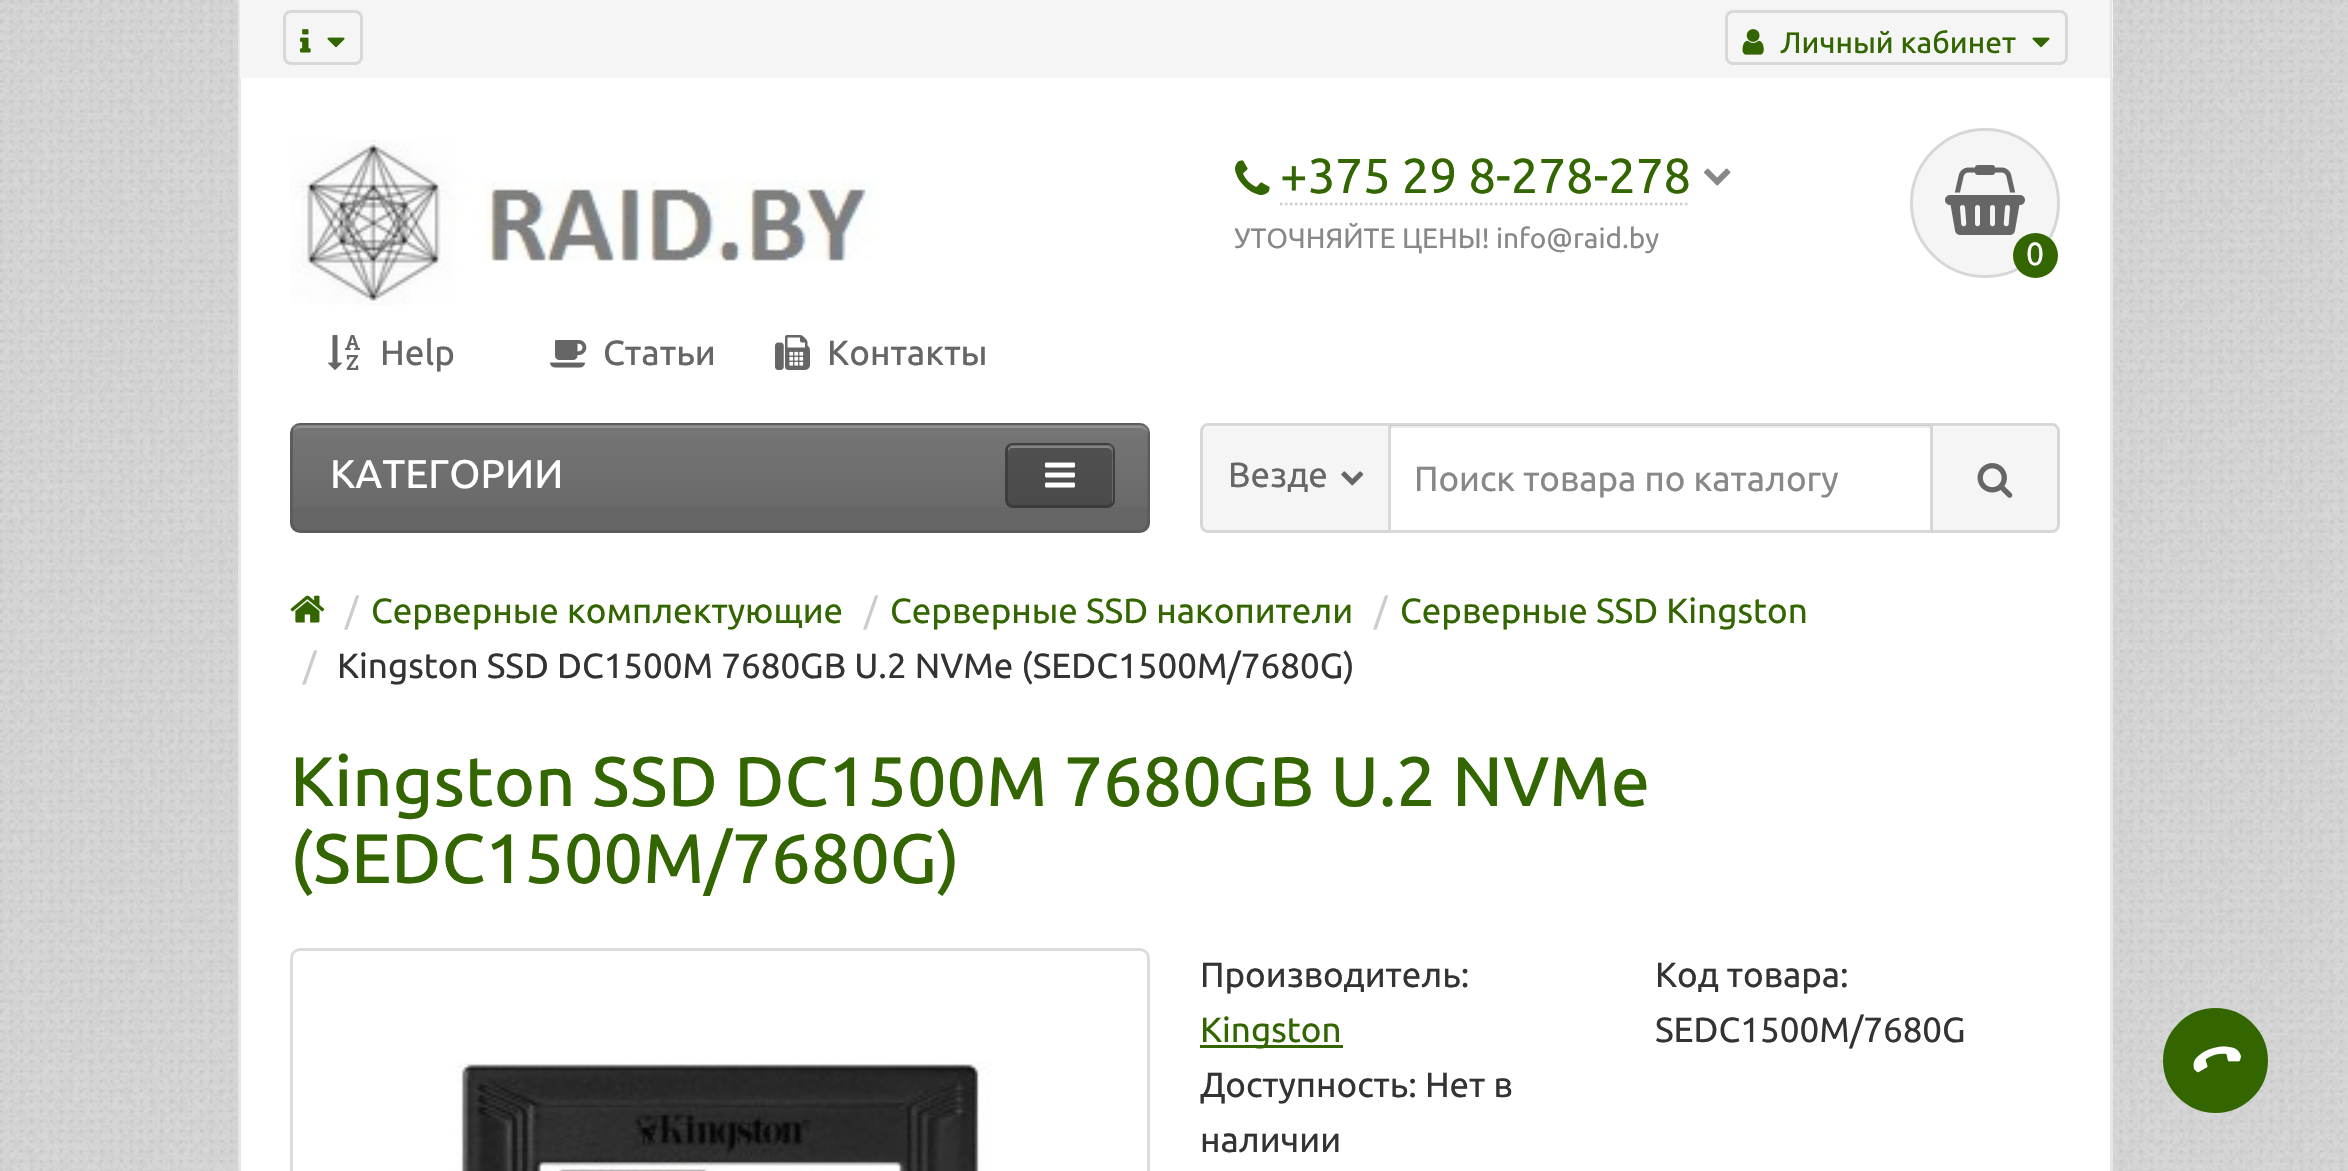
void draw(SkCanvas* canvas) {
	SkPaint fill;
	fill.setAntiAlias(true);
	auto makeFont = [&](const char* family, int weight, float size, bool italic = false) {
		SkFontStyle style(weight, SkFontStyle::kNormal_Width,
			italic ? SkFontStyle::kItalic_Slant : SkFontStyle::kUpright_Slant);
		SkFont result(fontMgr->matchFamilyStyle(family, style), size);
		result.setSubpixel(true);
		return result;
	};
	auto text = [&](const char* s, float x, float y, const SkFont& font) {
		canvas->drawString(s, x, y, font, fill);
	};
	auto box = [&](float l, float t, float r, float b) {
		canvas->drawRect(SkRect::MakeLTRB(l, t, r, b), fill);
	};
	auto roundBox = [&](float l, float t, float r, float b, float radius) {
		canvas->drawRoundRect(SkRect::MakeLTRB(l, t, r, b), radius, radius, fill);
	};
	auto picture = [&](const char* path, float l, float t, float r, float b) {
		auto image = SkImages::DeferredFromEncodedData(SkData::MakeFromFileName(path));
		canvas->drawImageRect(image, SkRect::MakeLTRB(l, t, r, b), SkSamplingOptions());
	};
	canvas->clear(0xFFFFFFFF);
	picture("image0.png", 0, 0, 2348, 1171);
	fill.setColor(0xFFF5F5F5);
	box(238, 0, 2113, 78);
	fill.setColor(0xFFE6E6E6);
	canvas->drawPath(SkPathBuilder().moveTo(2112, -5).lineTo(2112, 82).lineTo(2110, 80).lineTo(2110, -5).close().detach(), fill);
	fill.setColor(0x0F000000);
	canvas->drawPath(SkPathBuilder().moveTo(238, 82).lineTo(238, -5).lineTo(240, -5).lineTo(240, 80).close().detach(), fill);
	fill.setStyle(SkPaint::kStroke_Style);
	fill.setStrokeWidth(3);
	fill.setColor(0xFFD8D8D8);
	canvas->drawRoundRect(SkRect::MakeLTRB(284.5f, 11.5f, 361.5f, 63.5f), 6.5f, 6.5f, fill);
	picture("image1.png", 300, 29, 311, 53);
	picture("image2.png", 327, 37, 345, 48);
	canvas->drawRoundRect(SkRect::MakeLTRB(1726.5f, 11.5f, 2066.5f, 63.5f), 6.5f, 6.5f, fill);
	picture("image3.png", 1742, 29, 1764, 55);
	picture("image2.png", 2032, 37, 2050, 48);
	fill.setStyle(SkPaint::kFill_Style);
	fill.setColor(0xFFFFFFFF);
	box(241, 78, 2110, 583);
	fill.setColor(0xFFE6E6E6);
	box(2110, 78, 2113, 583);
	box(238, 78, 241, 583);
	picture("image4.png", 290, 140, 881, 305);
	picture("image5.png", 1235, 160, 1270, 195);
	fill.setStyle(SkPaint::kStroke_Style);
	fill.setStrokeWidth(2.5f);
	fill.setColor(0xFFCCCCCC);
	fill.setPathEffect(SkDashPathEffect::Make({{2.5f, 2.5f}}, 0));
	canvas->drawPath(SkPathBuilder().moveTo(1280, 204).lineTo(1690, 204).detach(), fill);
	fill.setPathEffect(nullptr);
	picture("image6.png", 1704, 168, 1731, 186);
	fill.setStyle(SkPaint::kFill_Style);
	fill.setColor(0xFFF5F5F5);
	canvas->drawCircle(1985, 203, 75, fill);
	fill.setStyle(SkPaint::kStroke_Style);
	fill.setStrokeWidth(3);
	fill.setColor(0x1F000000);
	canvas->drawCircle(1985, 203, 73.5f, fill);
	picture("image7.png", 1945, 165, 2025, 235);
	fill.setStyle(SkPaint::kFill_Style);
	fill.setColor(0xFF336600);
	canvas->drawCircle(2035.5f, 255.5f, 22.5f, fill);
	picture("image8.png", 328, 335, 360, 370);
	picture("image9.png", 550, 340, 587, 368);
	picture("image10.png", 775, 335, 810, 370);
	fill.setColor(0xFF666666);
	roundBox(290, 423, 1150, 533, 10);
	fill.setColor(0xFF858585);
	canvas->drawPath(SkPathBuilder().moveTo(300, 428).lineTo(1140, 428).cubicTo(1144, 428, 1148, 431, 1148, 435).lineTo(1148, 433).cubicTo(1148, 429, 1144, 425, 1140, 425).lineTo(301, 425).cubicTo(297, 425, 294, 428, 293, 431).cubicTo(295, 429, 297, 428, 300, 428).close().detach(), fill);
	fill.setStyle(SkPaint::kStroke_Style);
	fill.setColor(0x1A000000);
	canvas->drawRoundRect(SkRect::MakeLTRB(291.5f, 424.5f, 1148.5f, 531.5f), 8.5f, 8.5f, fill);
	fill.setStyle(SkPaint::kFill_Style);
	{
		const SkColor colors[] = {0x1AFFFFFF, 0x00FFFFFF};
		const float stops[] = {0, 1};
		const SkPoint ends[] = {{720, 425}, {720, 530}};
		fill.setShader(SkGradientShader::MakeLinear(ends, colors, stops, 2, SkTileMode::kClamp));
		fill.setAlpha(255);
	}
	box(293, 425, 1148, 507);
	fill.setShader(nullptr);
	fill.setColor(0x4D000000);
	roundBox(1005, 443, 1115, 508, 8);
	fill.setColor(0x4DFFFFFF);
	canvas->drawPath(SkPathBuilder().moveTo(1012, 448).lineTo(1092, 448).cubicTo(1116, 448, 1112, 445, 1112, 469).lineTo(1112, 503).cubicTo(1113, 502, 1113, 501, 1113, 500).lineTo(1113, 450).cubicTo(1113, 447, 1111, 445, 1108, 445).lineTo(1013, 445).cubicTo(1010, 445, 1008, 447, 1008, 450).lineTo(1008, 452).cubicTo(1008, 450, 1010, 448, 1012, 448).close().detach(), fill);
	fill.setStyle(SkPaint::kStroke_Style);
	fill.setColor(0x33000000);
	canvas->drawRoundRect(SkRect::MakeLTRB(1006.5f, 444.5f, 1113.5f, 506.5f), 6.5f, 6.5f, fill);
	picture("image11.png", 1045, 462, 1075, 488);
	fill.setStyle(SkPaint::kFill_Style);
	fill.setColor(0xFFF5F5F5);
	canvas->drawPath(SkPathBuilder().moveTo(1208, 423).lineTo(1393, 423).lineTo(1393, 533).lineTo(1208, 533).cubicTo(1203.5f, 533, 1200, 529.5f, 1200, 525).lineTo(1200, 431).cubicTo(1200, 426.5f, 1203.5f, 423, 1208, 423).close().detach(), fill);
	fill.setColor(0xFFF8F8F8);
	canvas->drawPath(SkPathBuilder().moveTo(1208, 428).lineTo(1390, 428).lineTo(1390, 425).lineTo(1208, 425).cubicTo(1205, 425, 1203, 427, 1203, 430).cubicTo(1204, 429, 1206, 428, 1208, 428).close().detach(), fill);
	fill.setStyle(SkPaint::kStroke_Style);
	fill.setColor(0x1F000000);
	canvas->drawPath(SkPathBuilder().moveTo(1208, 424.5f).lineTo(1391.5f, 424.5f).lineTo(1391.5f, 531.5f).lineTo(1208, 531.5f).cubicTo(1204.5f, 531.5f, 1201.5f, 528.5f, 1201.5f, 525).lineTo(1201.5f, 431).cubicTo(1201.5f, 427.5f, 1204.5f, 424.5f, 1208, 424.5f).close().detach(), fill);
	picture("image12.png", 1341, 471, 1364, 486);
	fill.setStyle(SkPaint::kFill_Style);
	fill.setColor(0xFFFFFFFF);
	box(1388, 423, 1393, 533);
	fill.setColor(0xFFECECEC);
	box(1390, 425, 1930, 428);
	fill.setStyle(SkPaint::kStroke_Style);
	fill.setColor(0x26000000);
	canvas->drawRect(SkRect::MakeLTRB(1389.5f, 424.5f, 1931.5f, 531.5f), fill);
	fill.setStyle(SkPaint::kFill_Style);
	fill.setColor(0xFFF5F5F5);
	canvas->drawPath(SkPathBuilder().moveTo(1930, 423).lineTo(2052, 423).cubicTo(2056.5f, 423, 2060, 426.5f, 2060, 431).lineTo(2060, 525).cubicTo(2060, 529.5f, 2056.5f, 533, 2052, 533).lineTo(1930, 533).close().detach(), fill);
	fill.setColor(0xFFF8F8F8);
	canvas->drawPath(SkPathBuilder().moveTo(1933, 425).lineTo(1933, 428).lineTo(2052, 428).cubicTo(2055, 428, 2058, 430, 2058, 432).cubicTo(2058, 429, 2057, 425, 2053, 425).close().detach(), fill);
	fill.setStyle(SkPaint::kStroke_Style);
	fill.setColor(0x1F000000);
	canvas->drawPath(SkPathBuilder().moveTo(1931.5f, 424.5f).lineTo(2052, 424.5f).cubicTo(2055.5f, 424.5f, 2058.5f, 427.5f, 2058.5f, 431).lineTo(2058.5f, 525).cubicTo(2058.5f, 528.5f, 2055.5f, 531.5f, 2052, 531.5f).lineTo(1931.5f, 531.5f).close().detach(), fill);
	picture("image13.png", 1977, 463, 2013, 498);
	fill.setStyle(SkPaint::kFill_Style);
	fill.setColor(0xFFFFFFFF);
	box(241, 583, 2110, 1171);
	fill.setColor(0xFFE6E6E6);
	box(2110, 583, 2113, 1171);
	box(238, 583, 241, 1171);
	picture("image14.png", 290, 595, 325, 623);
	fill.setStyle(SkPaint::kStroke_Style);
	fill.setColor(0xFFDDDDDD);
	canvas->drawRoundRect(SkRect::MakeLTRB(291.5f, 949.5f, 1148.5f, 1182.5f), 8.5f, 8.5f, fill);
	picture("image15.png", 455, 1061, 992, 1171);
	fill.setStyle(SkPaint::kFill_Style);
	fill.setColor(0xFF336600);
	box(1200, 1045, 1343, 1048);
	canvas->drawCircle(2215, 1060, 50, fill);
	picture("image16.png", 2193, 1046, 2241, 1073);
	fill.setStyle(SkPaint::kStroke_Style);
	fill.setStrokeWidth(5);
	canvas->drawCircle(2215.5f, 1060.5f, 50, fill);
	auto font1 = makeFont("Ubuntu", 500, 29.75f);
	fill.setStyle(SkPaint::kFill_Style);
	text("Личный кабинет", 1780, 53, font1);
	auto font2 = makeFont("Ubuntu", 400, 49);
	text("+375 29 8-278-278", 1280, 193, font2);
	auto font3 = makeFont("Ubuntu", 400, 28);
	fill.setColor(0xFF888888);
	text("УТОЧНЯЙТЕ ЦЕНЫ! info@raid.by", 1234, 248, font3);
	auto font4 = makeFont("Ubuntu", 400, 32);
	fill.setColor(0xFFFFFFFF);
	text("0", 2026, 265, font4);
	auto font5 = makeFont("Ubuntu", 500, 35);
	fill.setColor(0xFF666666);
	text("Help", 380, 365, font5);
	text("Статьи", 603, 365, font5);
	text("Контакты", 827, 365, font5);
	auto font6 = makeFont("Ubuntu", 500, 40);
	fill.setColor(0xFFFFFFFF);
	text("КАТЕГОРИИ", 330, 488, font6);
	auto font7 = makeFont("Ubuntu", 400, 35);
	fill.setColor(0xFF666666);
	text("Везде", 1228, 487, font7);
	fill.setColor(0xFF888888);
	text("Поиск товара по каталогу", 1414, 491, font7);
	fill.setColor(0xFFCCCCCC);
	text("/", 345, 623, font7);
	fill.setColor(0xFF336600);
	text("Серверные комплектующие", 371, 623, font7);
	fill.setColor(0xFFCCCCCC);
	text("/", 864, 623, font7);
	fill.setColor(0xFF336600);
	text("Серверные SSD накопители", 890, 623, font7);
	fill.setColor(0xFFCCCCCC);
	text("/", 1374, 623, font7);
	fill.setColor(0xFF336600);
	text("Серверные SSD Kingston", 1400, 623, font7);
	fill.setColor(0xFFCCCCCC);
	text("/", 303, 678, font7);
	fill.setColor(0xFF333333);
	text("Kingston SSD DC1500M 7680GB U.2 NVMe (SEDC1500M/7680G)", 337, 678, font7);
	auto font8 = makeFont("Ubuntu", 500, 70);
	fill.setColor(0xFF336600);
	text("Kingston SSD DC1500M 7680GB U.2 NVMe", 290, 806, font8);
	text("(SEDC1500M/7680G)", 290, 883, font8);
	fill.setColor(0xFF333333);
	text("Производитель:", 1200, 987, font7);
	fill.setColor(0xFF336600);
	text("Kingston", 1200, 1042, font7);
	fill.setColor(0xFF333333);
	text("Код товара:", 1655, 987, font7);
	text("SEDC1500M/7680G", 1655, 1042, font7);
	text("Доступность: Нет в", 1200, 1097, font7);
	text("наличии", 1200, 1152, font7);
}
